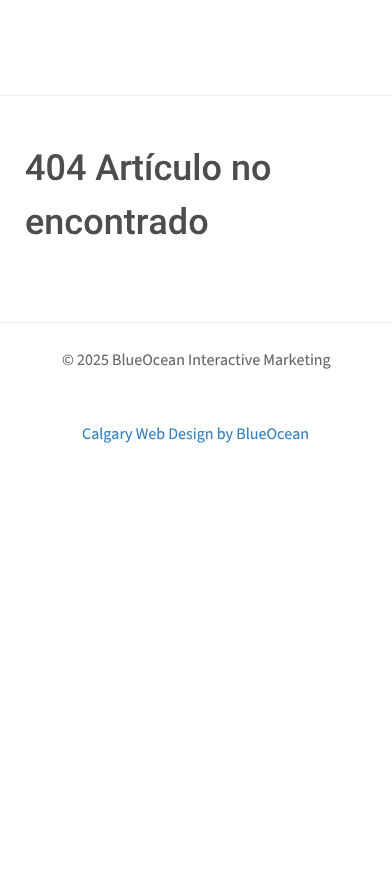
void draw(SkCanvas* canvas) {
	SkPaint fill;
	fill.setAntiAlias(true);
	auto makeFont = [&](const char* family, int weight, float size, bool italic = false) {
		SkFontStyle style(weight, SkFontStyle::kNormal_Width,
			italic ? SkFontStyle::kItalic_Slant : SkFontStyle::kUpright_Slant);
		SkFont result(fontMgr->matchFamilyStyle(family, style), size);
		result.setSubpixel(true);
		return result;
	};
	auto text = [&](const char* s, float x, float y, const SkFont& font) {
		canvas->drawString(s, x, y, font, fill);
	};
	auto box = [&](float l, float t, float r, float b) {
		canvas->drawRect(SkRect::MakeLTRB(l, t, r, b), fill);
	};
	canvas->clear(0xFFFFFFFF);
	fill.setColor(0xFFEEEEEE);
	box(0, 95, 392, 96);
	fill.setColor(0xFFF2F2F2);
	box(0, 322, 392, 323);
	auto font1 = makeFont("Roboto", 500, 36);
	fill.setColor(0xFF4D4D4D);
	text("404 Artículo no", 25, 180, font1);
	text("encontrado", 25, 234, font1);
	auto font2 = makeFont("Source Sans Pro", 400, 16);
	fill.setColor(0xFF666666);
	text("© 2025 BlueOcean Interactive Marketing", 62, 365, font2);
	fill.setColor(0xFF3180C2);
	text("Calgary Web Design by BlueOcean", 82, 439, font2);
}
